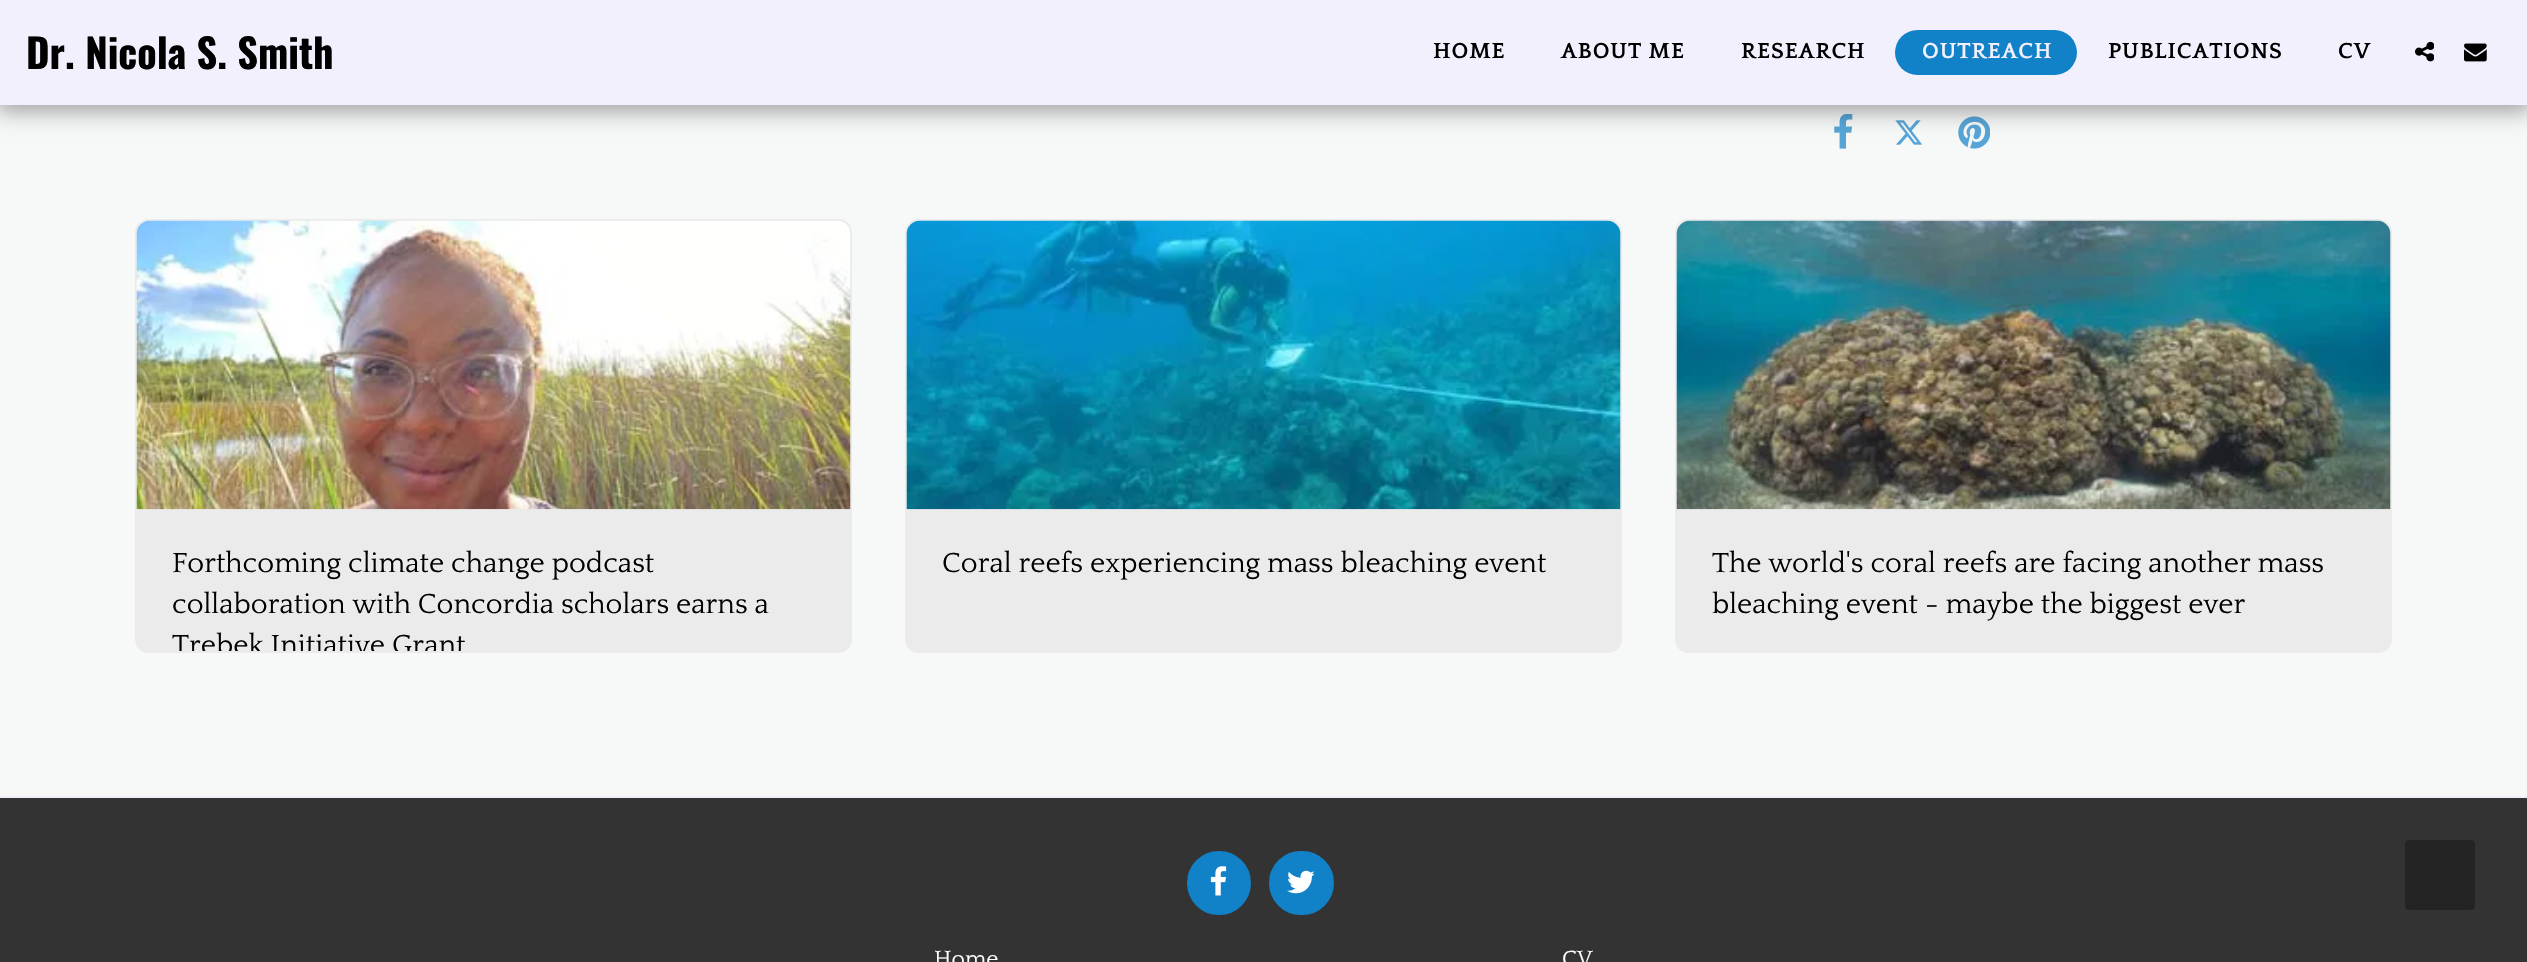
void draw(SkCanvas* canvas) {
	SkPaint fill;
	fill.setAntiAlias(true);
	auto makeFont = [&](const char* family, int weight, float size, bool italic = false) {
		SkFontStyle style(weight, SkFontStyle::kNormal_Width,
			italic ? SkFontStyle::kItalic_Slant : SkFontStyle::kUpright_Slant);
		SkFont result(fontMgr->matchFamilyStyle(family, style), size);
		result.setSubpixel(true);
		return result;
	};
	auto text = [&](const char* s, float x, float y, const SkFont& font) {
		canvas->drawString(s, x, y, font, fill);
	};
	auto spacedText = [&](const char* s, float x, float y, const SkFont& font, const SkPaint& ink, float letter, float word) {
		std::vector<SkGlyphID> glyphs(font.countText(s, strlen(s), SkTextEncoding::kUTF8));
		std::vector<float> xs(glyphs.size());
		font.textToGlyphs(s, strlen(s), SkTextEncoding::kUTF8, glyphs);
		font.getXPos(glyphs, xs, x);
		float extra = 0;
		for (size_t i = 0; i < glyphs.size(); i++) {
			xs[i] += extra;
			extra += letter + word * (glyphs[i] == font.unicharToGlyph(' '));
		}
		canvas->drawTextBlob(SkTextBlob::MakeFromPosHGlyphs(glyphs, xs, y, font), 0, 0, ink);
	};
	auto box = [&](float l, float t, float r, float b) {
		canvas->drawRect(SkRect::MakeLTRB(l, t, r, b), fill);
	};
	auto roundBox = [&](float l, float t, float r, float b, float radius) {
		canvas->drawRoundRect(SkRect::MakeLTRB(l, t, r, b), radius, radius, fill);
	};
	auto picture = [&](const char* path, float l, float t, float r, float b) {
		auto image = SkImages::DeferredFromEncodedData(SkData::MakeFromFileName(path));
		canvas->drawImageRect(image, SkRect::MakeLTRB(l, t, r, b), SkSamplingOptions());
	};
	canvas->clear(0xFFF7F9F8);
	picture("image2.png", 1834, 114, 1853, 149);
	picture("image3.png", 1895, 120, 1923, 145);
	picture("image4.png", 1958, 116, 1990, 149);
	fill.setColor(0x59000000);
	fill.setMaskFilter(SkMaskFilter::MakeBlur(kNormal_SkBlurStyle, 10.5f));
	canvas->drawRect(SkRect::MakeLTRB(-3, 0, 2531, 112), fill);
	fill.setMaskFilter(nullptr);
	fill.setColor(0xFFF2F0FC);
	box(0, 0, 2527, 105);
	fill.setColor(0xFF1181C8);
	roundBox(1895, 30, 2077, 75, 22.5f);
	picture("image0.png", 2415, 41, 2434, 62);
	picture("image1.png", 2464, 43, 2487, 62);
	fill.setColor(0xFFEBEBEB);
	canvas->drawRoundRect(SkRect::MakeLTRB(136, 220, 851, 652), 13, 13, fill);
	fill.setStyle(SkPaint::kStroke_Style);
	fill.setStrokeWidth(2);
	canvas->drawRoundRect(SkRect::MakeLTRB(136, 220, 851, 652), 13, 13, fill);
	picture("image5.png", 136, 220, 851, 510);
	fill.setStyle(SkPaint::kFill_Style);
	canvas->drawRoundRect(SkRect::MakeLTRB(906, 220, 1621, 652), 13, 13, fill);
	fill.setStyle(SkPaint::kStroke_Style);
	canvas->drawRoundRect(SkRect::MakeLTRB(906, 220, 1621, 652), 13, 13, fill);
	picture("image6.png", 906, 220, 1621, 510);
	fill.setStyle(SkPaint::kFill_Style);
	canvas->drawRoundRect(SkRect::MakeLTRB(1676, 220, 2391, 652), 13, 13, fill);
	fill.setStyle(SkPaint::kStroke_Style);
	canvas->drawRoundRect(SkRect::MakeLTRB(1676, 220, 2391, 652), 13, 13, fill);
	picture("image7.png", 1676, 220, 2391, 510);
	fill.setStyle(SkPaint::kFill_Style);
	fill.setColor(0xFFF2F0FC);
	box(0, 796, 2527, 798);
	fill.setColor(0xFF333333);
	box(0, 798, 2527, 962);
	fill.setColor(0xFF1181C8);
	canvas->drawCircle(1219, 883, 31, fill);
	fill.setStyle(SkPaint::kStroke_Style);
	canvas->drawCircle(1219, 883, 31, fill);
	picture("image8.png", 1210, 866, 1227, 896);
	fill.setStyle(SkPaint::kFill_Style);
	canvas->drawRoundRect(SkRect::MakeLTRB(1270, 852, 1333, 914), 31, 31, fill);
	fill.setStyle(SkPaint::kStroke_Style);
	canvas->drawRoundRect(SkRect::MakeLTRB(1270, 852, 1333, 914), 31, 31, fill);
	picture("image9.png", 1287, 870, 1314, 894);
	fill.setStyle(SkPaint::kFill_Style);
	fill.setColor(0xFF242424);
	roundBox(2405, 840, 2475, 910, 4);
	auto font1 = makeFont("Oswald", 700, 40.25f);
	fill.setColor(0xFF000000);
	text("Dr. Nicola S. Smith", 26, 69, font1);
	auto font2 = makeFont("Quattrocento", 700, 22.75f);
	spacedText("HOME", 1433, 58, font2, fill, 0.9f, 0);
	spacedText("ABOUT ME", 1561, 58, font2, fill, 0.9f, 0);
	spacedText("RESEARCH", 1741, 58, font2, fill, 0.9f, 0);
	fill.setColor(0xFFF2F0FC);
	spacedText("OUTREACH", 1922, 58, font2, fill, 0.9f, 0);
	fill.setColor(0xFF000000);
	spacedText("PUBLICATIONS", 2108, 58, font2, fill, 0.9f, 0);
	spacedText("CV", 2338, 58, font2, fill, 0.9f, 0);
	auto font3 = makeFont("Quattrocento", 400, 28.9f);
	text("Forthcoming climate change podcast", 172, 572, font3);
	text("collaboration with Concordia scholars earns a", 172, 613, font3);
	canvas->save();
	canvas->clipRect(SkRect::MakeLTRB(137, 509, 851, 651));
	text("Trebek Initiative Grant", 172, 654, font3);
	canvas->restore();
	text("Coral reefs experiencing mass bleaching event", 942, 572, font3);
	text("The world's coral reefs are facing another mass", 1712, 572, font3);
	text("bleaching event - maybe the biggest ever", 1712, 613, font3);
	auto font4 = makeFont("Quattrocento", 400, 23);
	fill.setColor(0xFFFFFFFF);
	text("Home", 934, 966, font4);
	text("CV", 1562, 966, font4);
}
